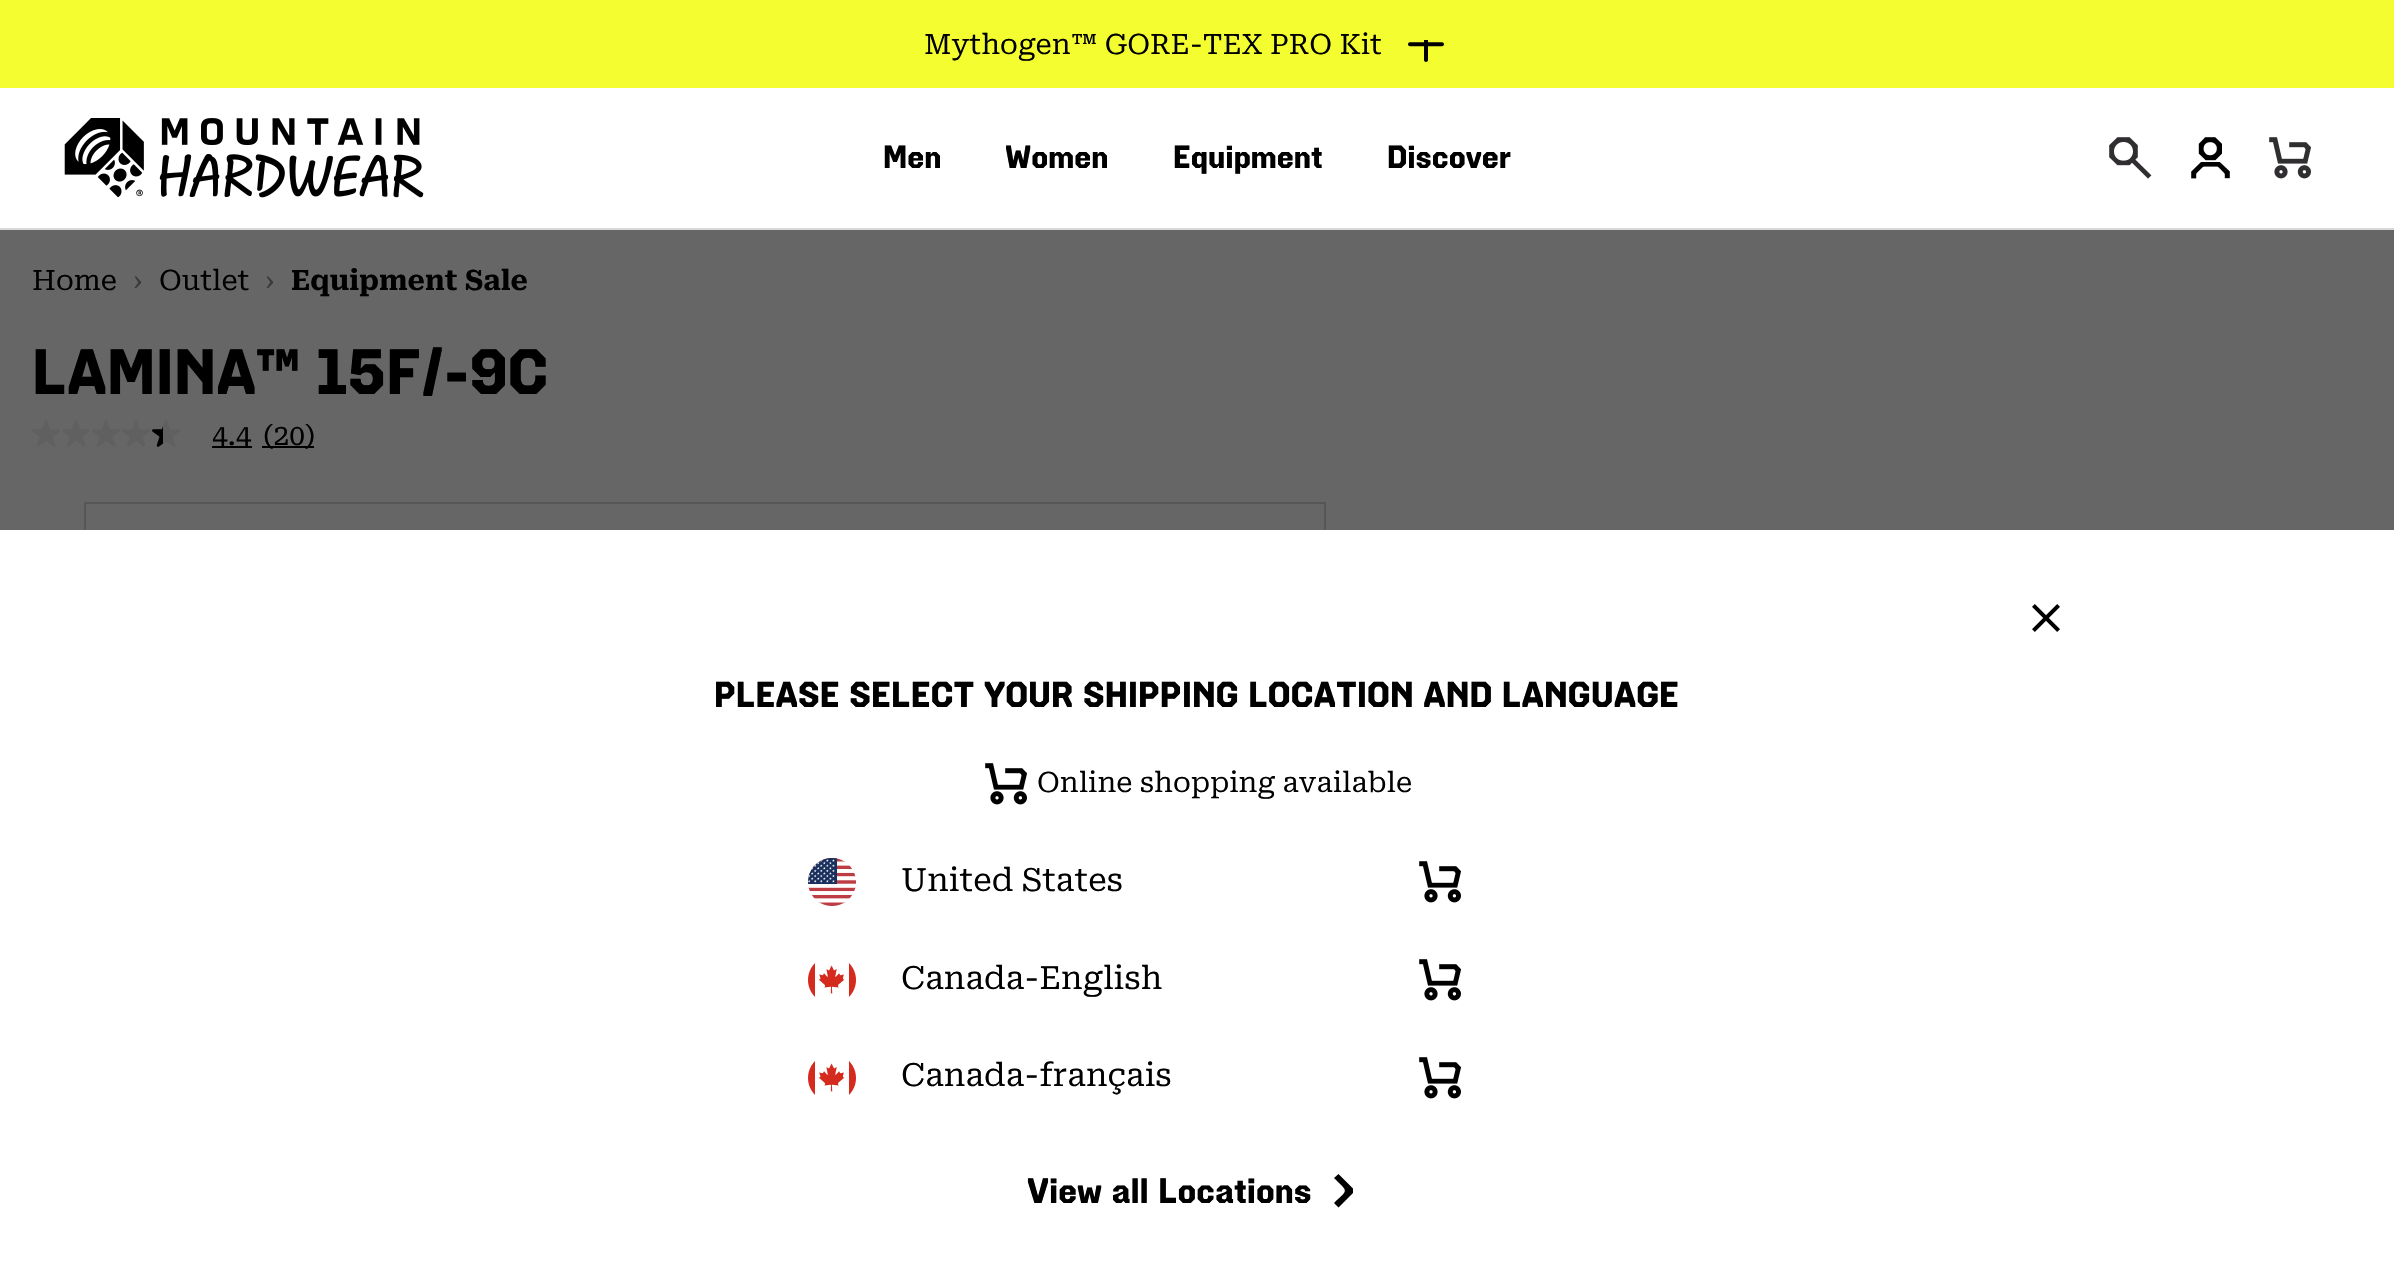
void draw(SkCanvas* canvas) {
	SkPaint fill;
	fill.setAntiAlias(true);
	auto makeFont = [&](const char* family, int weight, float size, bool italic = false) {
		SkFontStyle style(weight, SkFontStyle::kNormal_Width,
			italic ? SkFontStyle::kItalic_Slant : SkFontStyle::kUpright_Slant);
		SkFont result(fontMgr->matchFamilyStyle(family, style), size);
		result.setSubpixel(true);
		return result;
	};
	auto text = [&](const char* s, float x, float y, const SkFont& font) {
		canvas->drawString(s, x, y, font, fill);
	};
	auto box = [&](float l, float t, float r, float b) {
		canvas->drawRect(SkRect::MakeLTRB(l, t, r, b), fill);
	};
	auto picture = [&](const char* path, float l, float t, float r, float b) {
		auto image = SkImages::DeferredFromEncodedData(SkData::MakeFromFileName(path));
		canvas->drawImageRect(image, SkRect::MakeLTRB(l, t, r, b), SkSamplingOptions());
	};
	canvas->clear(0xFF666666);
	fill.setColor(0xFFF3FD30);
	box(0, 0, 2394, 88);
	picture("image0.png", 1408, 40, 1444, 62);
	fill.setColor(0xFFDAD8D8);
	box(0, 228, 2394, 230);
	fill.setColor(0xFFFFFFFF);
	box(0, 88, 2394, 228);
	picture("image1.png", 64, 118, 424, 198);
	picture("image2.png", 2109, 137, 2152, 179);
	picture("image3.png", 2191, 137, 2230, 179);
	picture("image4.png", 2269, 137, 2311, 179);
	picture("image5.png", 32, 420, 60, 447);
	picture("image5.png", 62, 420, 90, 447);
	picture("image5.png", 92, 420, 120, 447);
	picture("image5.png", 122, 420, 150, 447);
	picture("image6.png", 152, 420, 180, 447);
	fill.setColor(0xFF000000);
	box(212, 446, 252, 448);
	box(262, 446, 314, 448);
	fill.setStyle(SkPaint::kStroke_Style);
	fill.setStrokeWidth(2);
	fill.setColor(0xFF575656);
	canvas->drawRect(SkRect::MakeLTRB(85, 503, 1325, 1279), fill);
	fill.setStyle(SkPaint::kFill_Style);
	fill.setColor(0xFFFFFFFF);
	box(0, 530, 2394, 1278);
	picture("image7.png", 2032, 604, 2060, 632);
	picture("image8.png", 985, 763, 1027, 805);
	picture("image9.png", 808, 858, 856, 906);
	picture("image8.png", 1419, 861, 1461, 903);
	picture("image10.png", 808, 963, 856, 997);
	picture("image8.png", 1419, 959, 1461, 1001);
	picture("image10.png", 808, 1061, 856, 1095);
	picture("image8.png", 1419, 1057, 1461, 1099);
	fill.setColor(0xFF000000);
	canvas->drawPath(SkPathBuilder().moveTo(1334, 1203).cubicTo(1348.5f, 1189, 1348.5f, 1192.5f, 1334, 1178).lineTo(1338.5f, 1174).lineTo(1353, 1188.5f).lineTo(1353, 1193).lineTo(1338.5f, 1207.5f).close().detach(), fill);
	auto font1 = makeFont("Roboto Serif", 400, 28);
	text("Mythogen™ GORE-TEX PRO Kit", 924, 54, font1);
	auto font2 = makeFont("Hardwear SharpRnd", 700, 32);
	text("Men", 883, 168, font2);
	text("Women", 1005, 168, font2);
	text("Equipment", 1173, 168, font2);
	text("Discover", 1387, 168, font2);
	text("Home", 32, 290, font1);
	fill.setColor(0xFF3A393B);
	text("›", 133, 290, font1);
	fill.setColor(0xFF000000);
	text("Outlet", 159, 290, font1);
	fill.setColor(0xFF3A393B);
	text("›", 265, 290, font1);
	auto font3 = makeFont("Roboto Serif", 700, 28);
	fill.setColor(0xFF000000);
	text("Equipment Sale", 291, 290, font3);
	auto font4 = makeFont("Hardwear SharpRnd", 700, 64);
	text("LAMINA™ 15F/-9C", 32, 394, font4);
	text("4.4", 212, 445, font1);
	text("(20)", 263, 445, font1);
	auto font5 = makeFont("Hardwear SharpRnd", 700, 36);
	text("PLEASE SELECT YOUR SHIPPING LOCATION AND LANGUAGE", 714, 707, font5);
	text("Online shopping available", 1037, 792, font1);
	auto font6 = makeFont("Roboto Serif", 400, 32);
	text("United States", 901, 891, font6);
	text("Canada-English", 901, 989, font6);
	text("Canada-français", 901, 1086, font6);
	auto font7 = makeFont("Hardwear SharpRnd", 700, 35.25f);
	text("View all Locations", 1027, 1203, font7);
}
